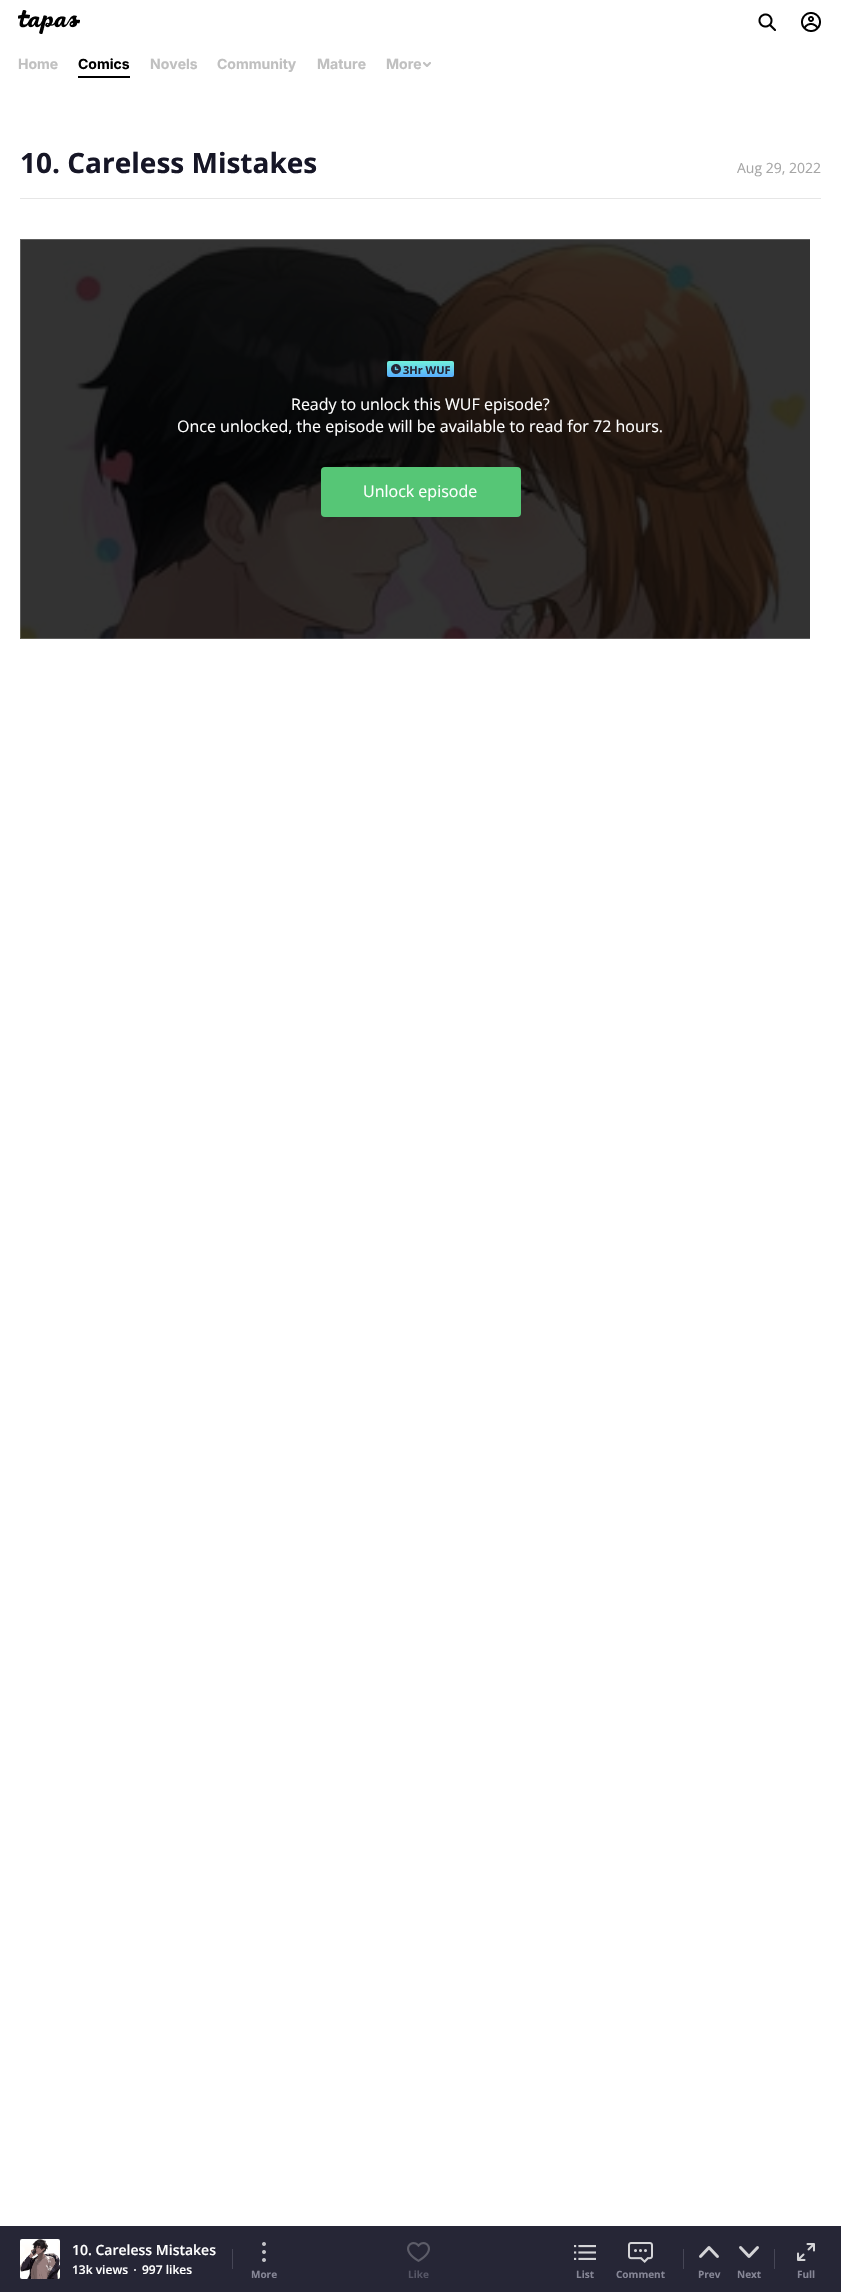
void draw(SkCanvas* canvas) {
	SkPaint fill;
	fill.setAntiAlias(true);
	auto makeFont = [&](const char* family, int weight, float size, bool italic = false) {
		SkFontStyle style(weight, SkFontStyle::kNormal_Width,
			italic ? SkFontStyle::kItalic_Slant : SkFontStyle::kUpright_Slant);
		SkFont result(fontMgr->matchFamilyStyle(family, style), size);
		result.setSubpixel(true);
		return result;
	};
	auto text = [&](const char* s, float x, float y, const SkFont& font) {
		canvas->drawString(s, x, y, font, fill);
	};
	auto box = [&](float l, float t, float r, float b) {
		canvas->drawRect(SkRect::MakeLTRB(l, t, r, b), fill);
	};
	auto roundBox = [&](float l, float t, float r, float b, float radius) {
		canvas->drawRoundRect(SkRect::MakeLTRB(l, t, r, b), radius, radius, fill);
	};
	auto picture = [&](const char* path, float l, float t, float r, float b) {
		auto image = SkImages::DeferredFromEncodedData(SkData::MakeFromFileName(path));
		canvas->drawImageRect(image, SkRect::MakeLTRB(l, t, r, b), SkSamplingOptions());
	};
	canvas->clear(0xFFFFFFFF);
	picture("image0.png", 18, 10, 80, 34);
	picture("image1.png", 758, 13, 776, 31);
	picture("image2.png", 801, 12, 821, 32);
	fill.setColor(0xFF000000);
	box(78, 76, 130, 78);
	picture("image3.png", 423, 62, 431, 67);
	fill.setColor(0xFFE6E6E6);
	box(20, 198, 821, 199);
	picture("image4.png", 20, 239, 810, 639);
	fill.setStyle(SkPaint::kStroke_Style);
	fill.setStrokeWidth(1);
	fill.setColor(0x33FFFFFF);
	canvas->drawRect(SkRect::MakeLTRB(20.5f, 239.5f, 820.5f, 638.5f), fill);
	fill.setStyle(SkPaint::kFill_Style);
	{
		const SkColor colors[] = {0xFF72F2DB, 0xFF59ADFF};
		const float stops[] = {0, 1};
		const SkPoint ends[] = {{421, 361}, {421, 377}};
		fill.setShader(SkGradientShader::MakeLinear(ends, colors, stops, 2, SkTileMode::kClamp));
		fill.setAlpha(255);
	}
	roundBox(387, 361, 454, 377, 2);
	picture("image5.png", 391, 364, 401, 374);
	fill.setShader(nullptr);
	fill.setColor(0xFF56C676);
	roundBox(321, 467, 521, 517, 4);
	fill.setColor(0xFF262636);
	box(0, 2226, 841, 2292);
	picture("image6.png", 20, 2239, 60, 2279);
	fill.setColor(0xFFFFFFFF);
	canvas->drawCircle(135, 2270, 1, fill);
	fill.setColor(0xFF464656);
	box(232, 2249, 233, 2269);
	picture("image7.png", 262, 2242, 266, 2262);
	picture("image8.png", 407, 2242, 430, 2262);
	box(683, 2249, 684, 2269);
	box(774, 2249, 775, 2269);
	picture("image9.png", 574, 2245, 596, 2260);
	picture("image10.png", 628, 2242, 653, 2263);
	picture("image11.png", 699, 2246, 719, 2258);
	picture("image12.png", 739, 2246, 759, 2258);
	picture("image13.png", 797, 2243, 815, 2261);
	auto font1 = makeFont("Inter", 700, 14);
	fill.setColor(0xFFC0C0C0);
	text("Home", 18, 69, font1);
	fill.setColor(0xFF000000);
	text("Comics", 78, 69, font1);
	fill.setColor(0xFFC0C0C0);
	text("Novels", 150, 69, font1);
	text("Community", 217, 69, font1);
	text("Mature", 317, 69, font1);
	text("More", 386, 69, font1);
	auto font2 = makeFont("Open Sans", 700, 28);
	fill.setColor(0xFF161626);
	text("10. Careless Mistakes", 20, 173, font2);
	auto font3 = makeFont("Open Sans", 400, 14);
	fill.setColor(0xFFA6A6A6);
	text("Aug 29, 2022", 737, 173, font3);
	auto font4 = makeFont("Open Sans", 700, 11);
	fill.setColor(0xFF262636);
	text("3Hr WUF", 403, 374, font4);
	auto font5 = makeFont("Open Sans", 400, 16);
	fill.setColor(0xFFFFFFFF);
	text("Ready to unlock this WUF episode?", 291, 410, font5);
	text("Once unlocked, the episode will be available to read for 72 hours.", 177, 432, font5);
	text("Unlock episode", 363, 497, font5);
	auto font6 = makeFont("Open Sans", 600, 14);
	text("10. Careless Mistakes", 72, 2255, font6);
	auto font7 = makeFont("Open Sans", 600, 12);
	text("13k views", 72, 2274, font7);
	text("997 likes", 142, 2274, font7);
	auto font8 = makeFont("Open Sans", 700, 10);
	fill.setColor(0xFF868696);
	text("More", 251, 2278, font8);
	fill.setColor(0xFF565666);
	text("Like", 408, 2278, font8);
	fill.setColor(0xFF868696);
	text("List", 576, 2278, font8);
	text("Comment", 616, 2278, font8);
	text("Prev", 698, 2278, font8);
	text("Next", 737, 2278, font8);
	text("Full", 797, 2278, font8);
}
